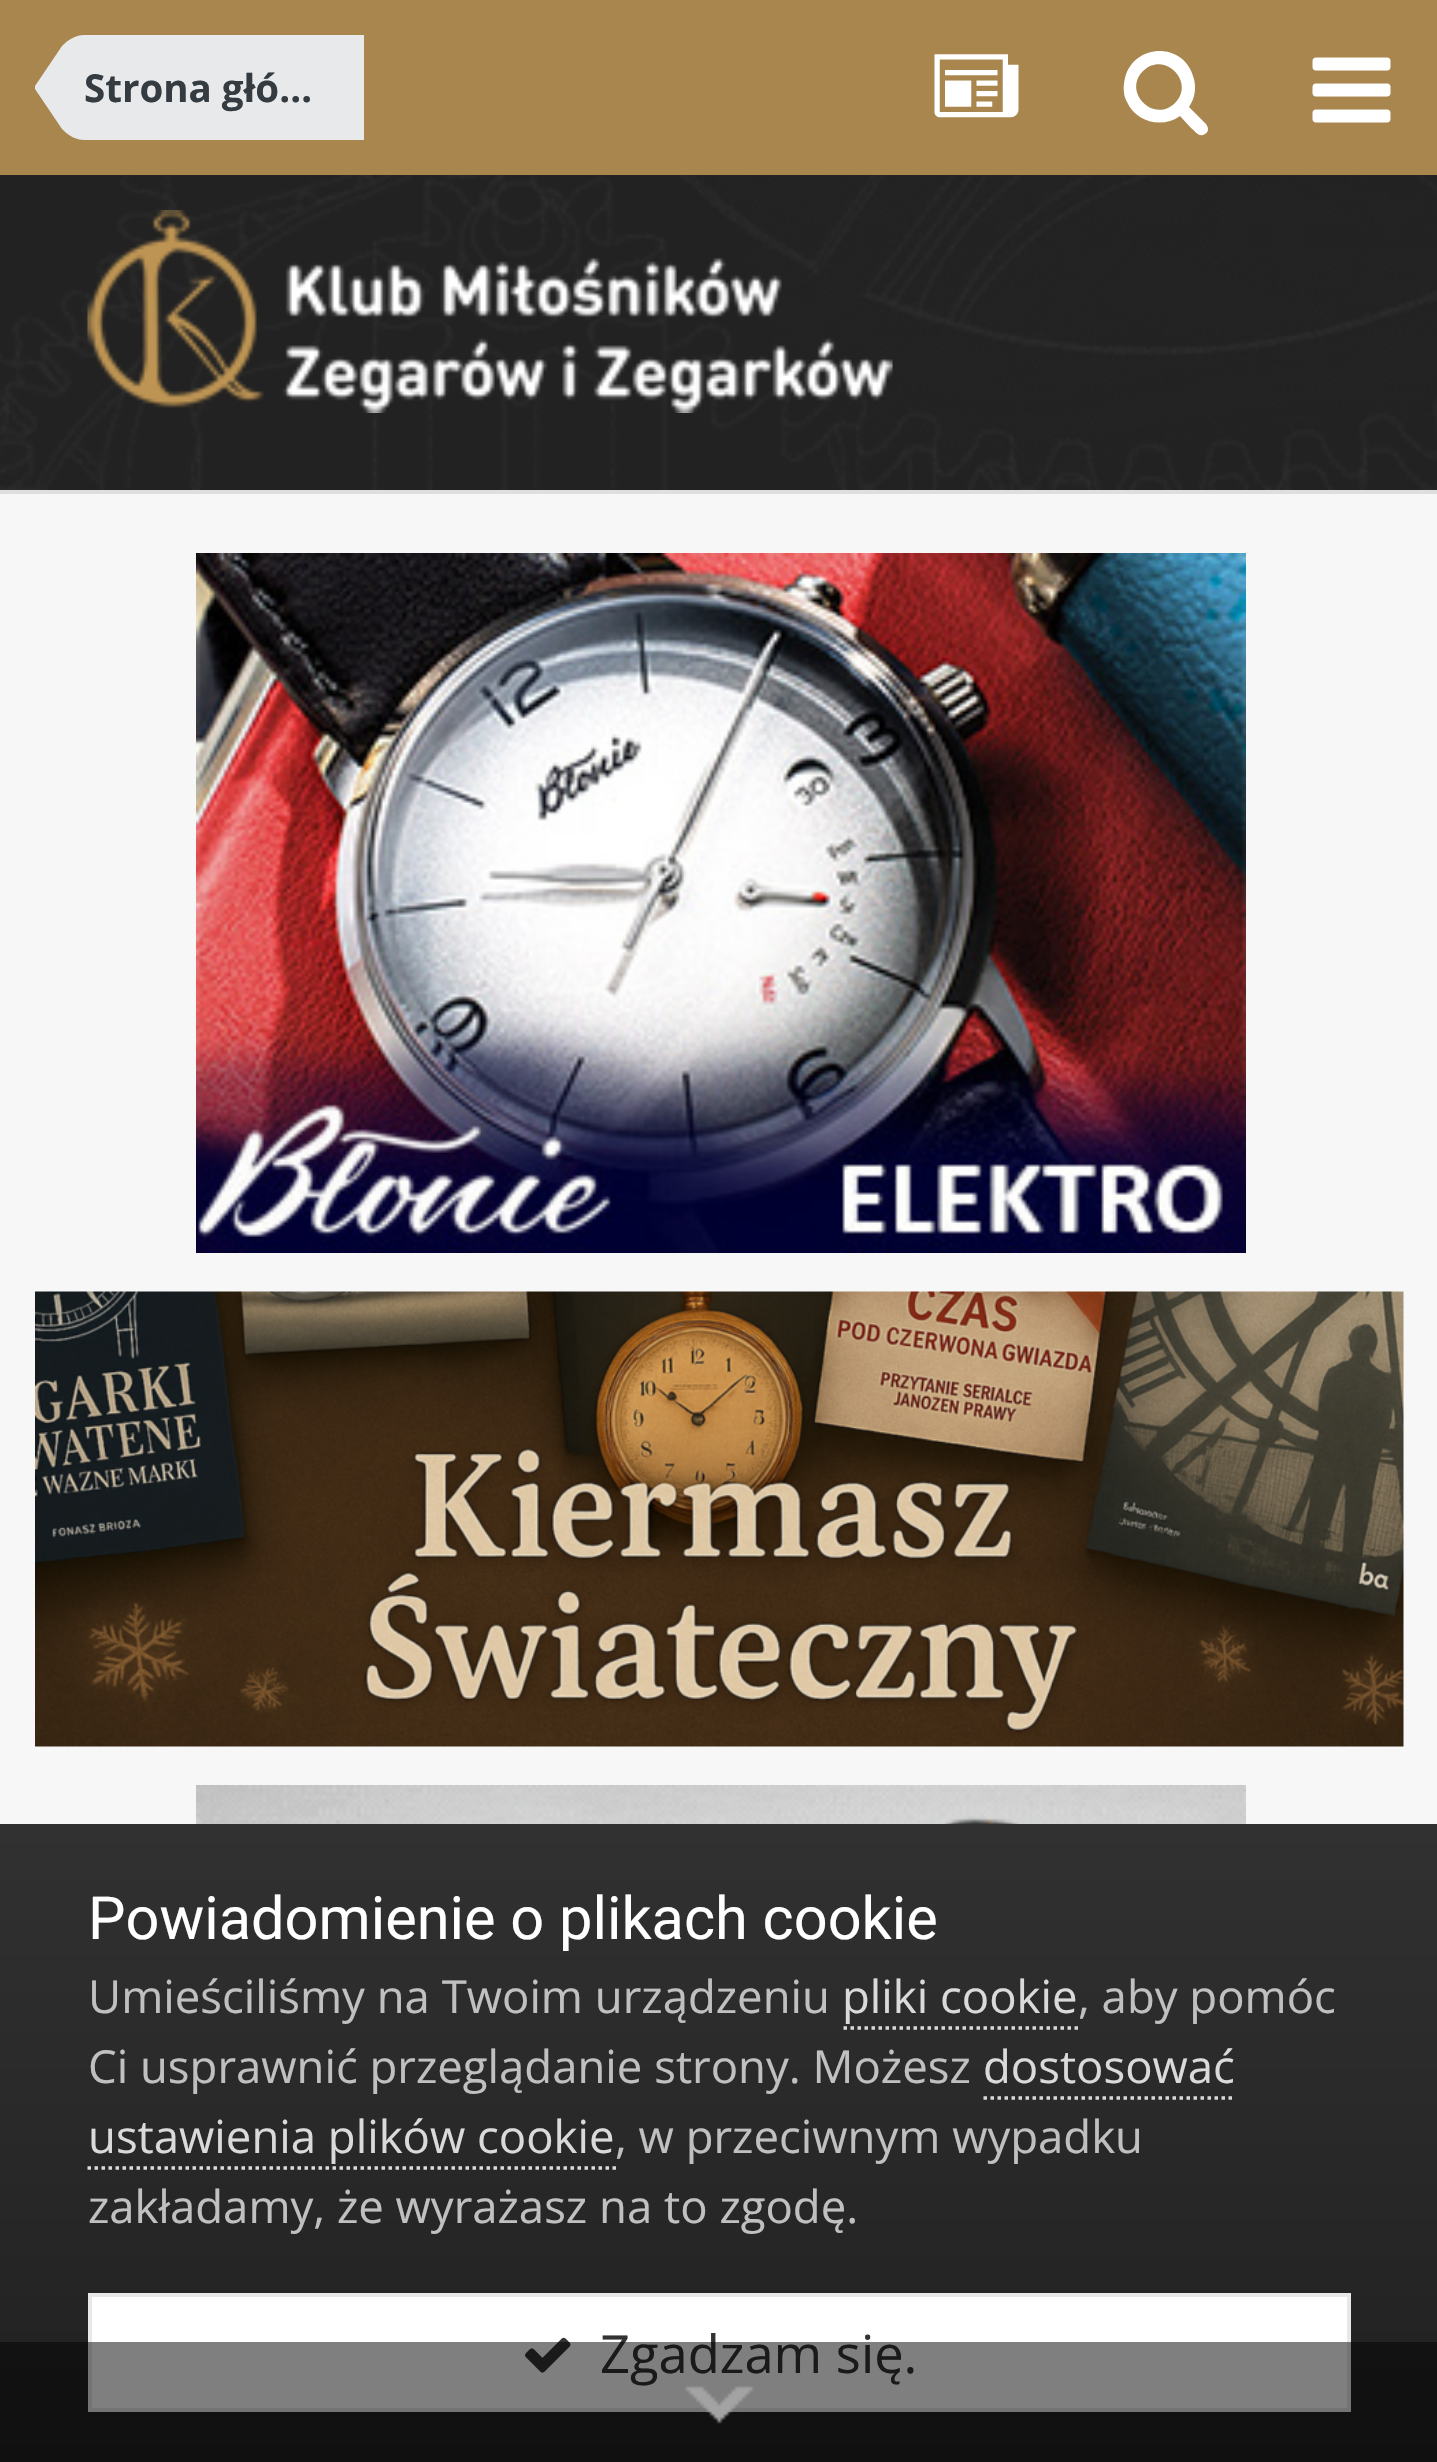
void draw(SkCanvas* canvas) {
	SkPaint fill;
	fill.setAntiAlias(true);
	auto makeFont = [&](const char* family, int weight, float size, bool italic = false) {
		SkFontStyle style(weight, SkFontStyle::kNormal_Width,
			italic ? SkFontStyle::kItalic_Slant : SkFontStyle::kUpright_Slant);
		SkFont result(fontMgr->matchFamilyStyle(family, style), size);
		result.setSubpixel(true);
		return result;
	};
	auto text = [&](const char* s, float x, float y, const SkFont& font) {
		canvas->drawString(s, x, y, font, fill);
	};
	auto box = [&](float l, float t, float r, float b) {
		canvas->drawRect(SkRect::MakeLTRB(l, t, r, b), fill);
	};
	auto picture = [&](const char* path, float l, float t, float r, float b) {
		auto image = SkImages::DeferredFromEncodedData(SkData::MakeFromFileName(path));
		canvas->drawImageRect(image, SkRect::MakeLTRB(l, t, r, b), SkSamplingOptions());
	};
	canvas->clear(0xFFF7F7F7);
	fill.setColor(0xFFDEDEDE);
	box(0, 490, 1437, 494);
	fill.setColor(0xFFA9864E);
	box(0, 0, 1437, 175);
	fill.setColor(0xFFE8E9EB);
	box(84, 35, 364, 140);
	canvas->drawPath(SkPathBuilder().moveTo(35, 89).lineTo(35, 88).lineTo(84, 88).lineTo(84, 140).cubicTo(76, 140, 69, 136, 62, 129).close().detach(), fill);
	canvas->drawPath(SkPathBuilder().moveTo(84, 35).lineTo(84, 88).lineTo(35, 88).lineTo(35, 86).lineTo(62, 46).cubicTo(69, 39, 76, 35, 84, 35).close().detach(), fill);
	picture("image0.png", 934, 54, 1019, 118);
	fill.setColor(0xFFFFFFFF);
	canvas->drawPath(SkPathBuilder().moveTo(1175, 103).cubicTo(1196, 82, 1164, 50, 1143, 71).cubicTo(1122, 92, 1154, 124, 1175, 103).close().moveTo(1208, 129).cubicTo(1208, 131, 1207, 133, 1205, 134).cubicTo(1199, 138, 1195, 131, 1191, 128).lineTo(1180, 116).cubicTo(1162, 129, 1136, 122, 1127, 102).cubicTo(1123, 95, 1123, 86, 1125, 78).cubicTo(1134, 43, 1183, 42, 1193, 76).cubicTo(1197, 87, 1195, 98, 1189, 107).lineTo(1206, 124).cubicTo(1207, 126, 1208, 127, 1208, 129).close().detach(), fill);
	picture("image1.png", 1312, 57, 1391, 123);
	picture("image2.png", 0, 175, 1437, 490);
	picture("image3.png", 87, 210, 893, 413);
	picture("image4.png", 196, 553, 1246, 1253);
	picture("image5.png", 35, 1291, 1404, 1747);
	picture("image6.png", 196, 1785, 1246, 1824);
	{
		const SkColor colors[] = {0xFF313131, 0xFF202020};
		const float stops[] = {0, 1};
		const SkPoint ends[] = {{719, 1824}, {719, 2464}};
		fill.setShader(SkGradientShader::MakeLinear(ends, colors, stops, 2, SkTileMode::kClamp));
		fill.setAlpha(255);
	}
	box(0, 1824, 1437, 2462);
	fill.setStyle(SkPaint::kStroke_Style);
	fill.setStrokeWidth(3.5f);
	fill.setShader(nullptr);
	fill.setColor(0xFFDADADA);
	fill.setPathEffect(SkDashPathEffect::Make({{3.5f, 3.5f}}, 0));
	canvas->drawPath(SkPathBuilder().moveTo(843.5f, 2028).lineTo(1078, 2028).detach(), fill);
	fill.setPathEffect(nullptr);
	fill.setPathEffect(SkDashPathEffect::Make({{3.5f, 3.5f}}, 0));
	canvas->drawPath(SkPathBuilder().moveTo(983.5f, 2098).lineTo(1235.5f, 2098).detach(), fill);
	fill.setPathEffect(nullptr);
	fill.setPathEffect(SkDashPathEffect::Make({{3.5f, 3.5f}}, 0));
	canvas->drawPath(SkPathBuilder().moveTo(87.5f, 2168).lineTo(616, 2168).detach(), fill);
	fill.setPathEffect(nullptr);
	fill.setStyle(SkPaint::kFill_Style);
	fill.setColor(0xFFFFFFFF);
	canvas->drawRect(SkRect::MakeLTRB(90, 2295, 1349, 2410), fill);
	fill.setStyle(SkPaint::kStroke_Style);
	fill.setStrokeWidth(4);
	fill.setColor(0xFFE8E8E8);
	canvas->drawRect(SkRect::MakeLTRB(90, 2295, 1349, 2410), fill);
	picture("image7.png", 525, 2337, 571, 2373);
	auto font1 = makeFont("Open Sans", 700, 38.5f);
	fill.setStyle(SkPaint::kFill_Style);
	fill.setColor(0xFF353C41);
	text("Strona głó…", 84, 102, font1);
	auto font2 = makeFont("Roboto", 400, 59.5f);
	fill.setColor(0xFFFFFFFF);
	text("Powiadomienie o plikach cookie", 88, 1939, font2);
	auto font3 = makeFont("Open Sans", 400, 45.5f);
	fill.setColor(0xFFC0C0C0);
	text("Umieściliśmy na Twoim urządzeniu", 88, 2013, font3);
	fill.setColor(0xFFDADADA);
	text("pliki cookie", 842, 2013, font3);
	fill.setColor(0xFFC0C0C0);
	text(", aby pomóc", 1078, 2013, font3);
	text("Ci usprawnić przeglądanie strony. Możesz", 88, 2083, font3);
	fill.setColor(0xFFDADADA);
	text("dostosować", 983, 2083, font3);
	text("ustawienia plików cookie", 88, 2153, font3);
	fill.setColor(0xFFC0C0C0);
	text(", w przeciwnym wypadku", 615, 2153, font3);
	text("zakładamy, że wyrażasz na to zgodę.", 88, 2223, font3);
	auto font4 = makeFont("Open Sans", 400, 52.5f);
	fill.setColor(0xFF333333);
	text("Zgadzam się.", 600, 2373, font4);
	fill.setColor(0x80000000);
	box(0, 2342, 1437, 2462);
	picture("image8.png", 685, 2386, 754, 2424);
}
